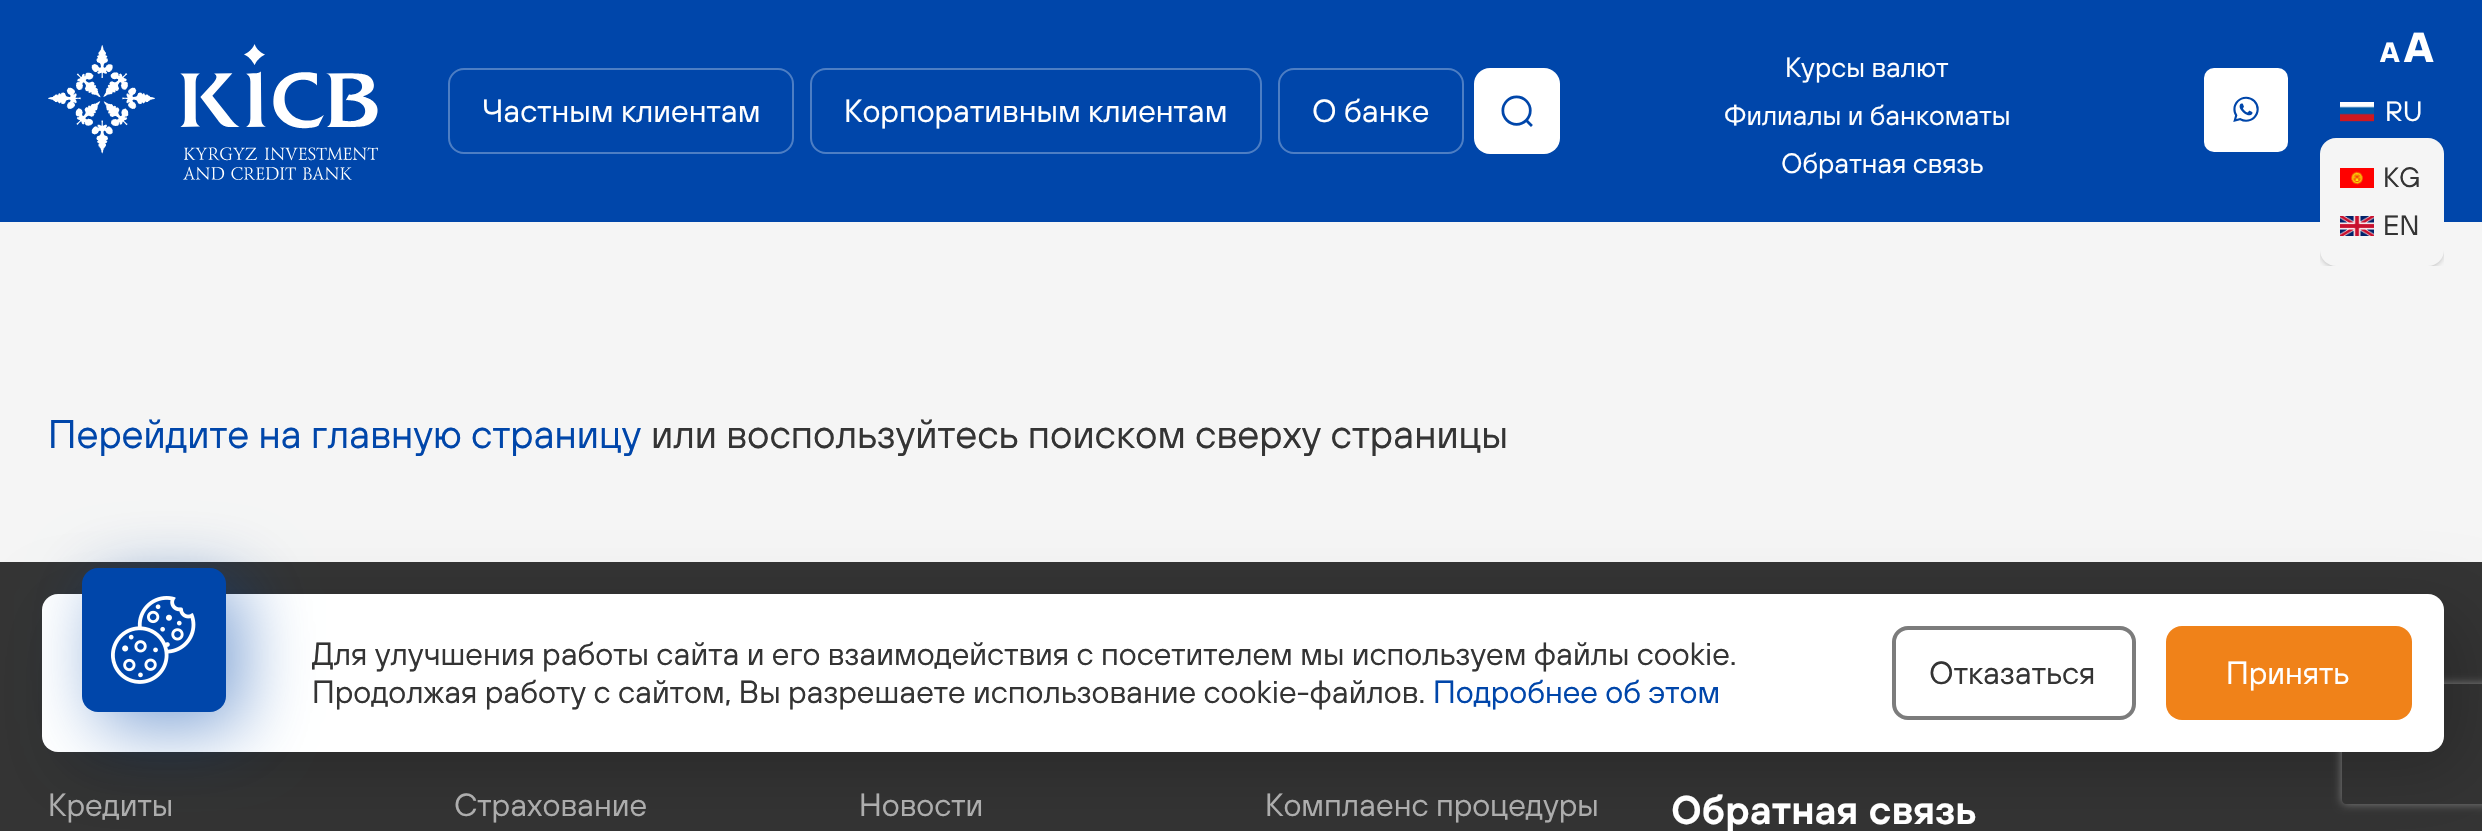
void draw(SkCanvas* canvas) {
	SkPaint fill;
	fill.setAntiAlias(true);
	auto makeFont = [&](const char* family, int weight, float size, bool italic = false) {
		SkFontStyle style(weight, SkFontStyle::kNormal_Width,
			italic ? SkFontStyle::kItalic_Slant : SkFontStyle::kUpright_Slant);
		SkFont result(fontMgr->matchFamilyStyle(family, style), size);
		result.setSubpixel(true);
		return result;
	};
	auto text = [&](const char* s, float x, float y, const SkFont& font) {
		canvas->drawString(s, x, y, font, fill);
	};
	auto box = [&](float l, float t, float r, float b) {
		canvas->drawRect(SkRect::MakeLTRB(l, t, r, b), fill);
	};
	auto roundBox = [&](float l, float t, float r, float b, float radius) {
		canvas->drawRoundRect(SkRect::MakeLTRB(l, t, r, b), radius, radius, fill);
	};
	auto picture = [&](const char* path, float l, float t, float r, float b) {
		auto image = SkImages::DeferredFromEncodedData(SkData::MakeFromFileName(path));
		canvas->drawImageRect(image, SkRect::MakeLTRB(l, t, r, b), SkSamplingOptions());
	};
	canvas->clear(0xFFF5F5F5);
	fill.setColor(0xFF0046AA);
	box(0, 0, 2482, 222);
	picture("image0.png", 48, 44, 378, 180);
	picture("image1.png", 2379, 42, 2400, 62);
	picture("image2.png", 2403, 32, 2434, 62);
	fill.setStyle(SkPaint::kStroke_Style);
	fill.setStrokeWidth(2);
	fill.setColor(0xFF4D7EC4);
	canvas->drawRoundRect(SkRect::MakeLTRB(449, 69, 793, 153), 15, 15, fill);
	canvas->drawRoundRect(SkRect::MakeLTRB(811, 69, 1261, 153), 15, 15, fill);
	canvas->drawRoundRect(SkRect::MakeLTRB(1279, 69, 1463, 153), 15, 15, fill);
	fill.setStyle(SkPaint::kFill_Style);
	fill.setColor(0xFFFFFFFF);
	roundBox(1474, 68, 1560, 154, 16);
	picture("image3.png", 1501, 95, 1533, 127);
	roundBox(2204, 68, 2288, 152, 10);
	picture("image4.png", 2233, 96, 2259, 122);
	picture("image5.png", 2340, 102, 2374, 122);
	canvas->save();
	canvas->clipRect(SkRect::MakeLTRB(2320, 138, 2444, 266));
	fill.setColor(0x2B000000);
	fill.setMaskFilter(SkMaskFilter::MakeBlur(kNormal_SkBlurStyle, 2));
	canvas->drawRoundRect(SkRect::MakeLTRB(2320, 140, 2444, 268), 16, 16, fill);
	fill.setMaskFilter(nullptr);
	canvas->restore();
	fill.setColor(0xFFF5F5F5);
	roundBox(2320, 138, 2444, 266, 16);
	picture("image6.png", 2340, 168, 2374, 188);
	picture("image7.png", 2340, 216, 2374, 236);
	fill.setColor(0xFF343434);
	box(0, 562, 2482, 831);
	fill.setColor(0x33000000);
	fill.setMaskFilter(SkMaskFilter::MakeBlur(kNormal_SkBlurStyle, 35));
	canvas->drawRoundRect(SkRect::MakeLTRB(62, 614, 2464, 772), 16, 16, fill);
	fill.setMaskFilter(nullptr);
	canvas->save();
	canvas->clipPath(SkPathBuilder(SkPathFillType::kEvenOdd).moveTo(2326, 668).lineTo(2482, 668).lineTo(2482, 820).lineTo(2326, 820).close().moveTo(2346, 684).lineTo(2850, 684).cubicTo(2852, 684, 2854, 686, 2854, 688).lineTo(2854, 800).cubicTo(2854, 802, 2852, 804, 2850, 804).lineTo(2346, 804).cubicTo(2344, 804, 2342, 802, 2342, 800).lineTo(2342, 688).cubicTo(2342, 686, 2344, 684, 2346, 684).close().detach(), true);
	fill.setColor(0xFF808080);
	fill.setMaskFilter(SkMaskFilter::MakeBlur(kNormal_SkBlurStyle, 5));
	canvas->drawRoundRect(SkRect::MakeLTRB(2342, 684, 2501, 804), 4, 4, fill);
	fill.setMaskFilter(nullptr);
	canvas->restore();
	fill.setColor(0xFFFFFFFF);
	roundBox(42, 594, 2444, 752, 16);
	fill.setColor(0x800046AA);
	fill.setMaskFilter(SkMaskFilter::MakeBlur(kNormal_SkBlurStyle, 35));
	canvas->drawRoundRect(SkRect::MakeLTRB(98, 584, 242, 728), 16, 16, fill);
	fill.setMaskFilter(nullptr);
	fill.setColor(0xFF0046AA);
	roundBox(82, 568, 226, 712, 16);
	picture("image8.png", 111, 596, 196, 684);
	fill.setStyle(SkPaint::kStroke_Style);
	fill.setStrokeWidth(4);
	fill.setColor(0xFF7C7C7C);
	canvas->drawRoundRect(SkRect::MakeLTRB(1894, 628, 2134, 718), 14, 14, fill);
	fill.setStyle(SkPaint::kFill_Style);
	fill.setColor(0xFFF08219);
	roundBox(2166, 626, 2412, 720, 16);
	auto font1 = makeFont("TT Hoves", 400, 32);
	fill.setColor(0xFFFFFFFF);
	text("Частным клиентам", 482, 122, font1);
	text("Корпоративным клиентам", 844, 122, font1);
	text("О банке", 1312, 122, font1);
	auto font2 = makeFont("TT Hoves", 400, 28);
	text("Курсы валют", 1785, 77, font2);
	text("Филиалы и банкоматы", 1724, 125, font2);
	text("Обратная связь", 1781, 173, font2);
	text("RU", 2385, 121, font2);
	fill.setColor(0xFF343434);
	text("KG", 2383, 187, font2);
	text("EN", 2383, 235, font2);
	auto font3 = makeFont("TT Hoves", 400, 40);
	fill.setColor(0xFF0046AA);
	text("Перейдите на главную страницу", 48, 448, font3);
	fill.setColor(0xFF343434);
	text("или воспользуйтесь поиском сверху страницы", 651, 448, font3);
	text("Для улучшения работы сайта и его взаимодействия с посетителем мы используем файлы cookie.", 312, 665, font1);
	text("Продолжая работу с сайтом, Вы разрешаете использование cookie-файлов.", 312, 703, font1);
	fill.setColor(0xFF0046AA);
	text("Подробнее об этом", 1433, 703, font1);
	fill.setColor(0xFF343434);
	text("Отказаться", 1929, 684, font1);
	fill.setColor(0xFFFFFFFF);
	text("Принять", 2226, 684, font1);
	fill.setColor(0xFFADADAD);
	text("Кредиты", 48, 816, font1);
	text("Страхование", 454, 816, font1);
	text("Новости", 859, 816, font1);
	text("Комплаенс процедуры", 1265, 816, font1);
	auto font4 = makeFont("TT Hoves", 600, 40);
	fill.setColor(0xFFFFFFFF);
	text("Обратная связь", 1671, 824, font4);
}
